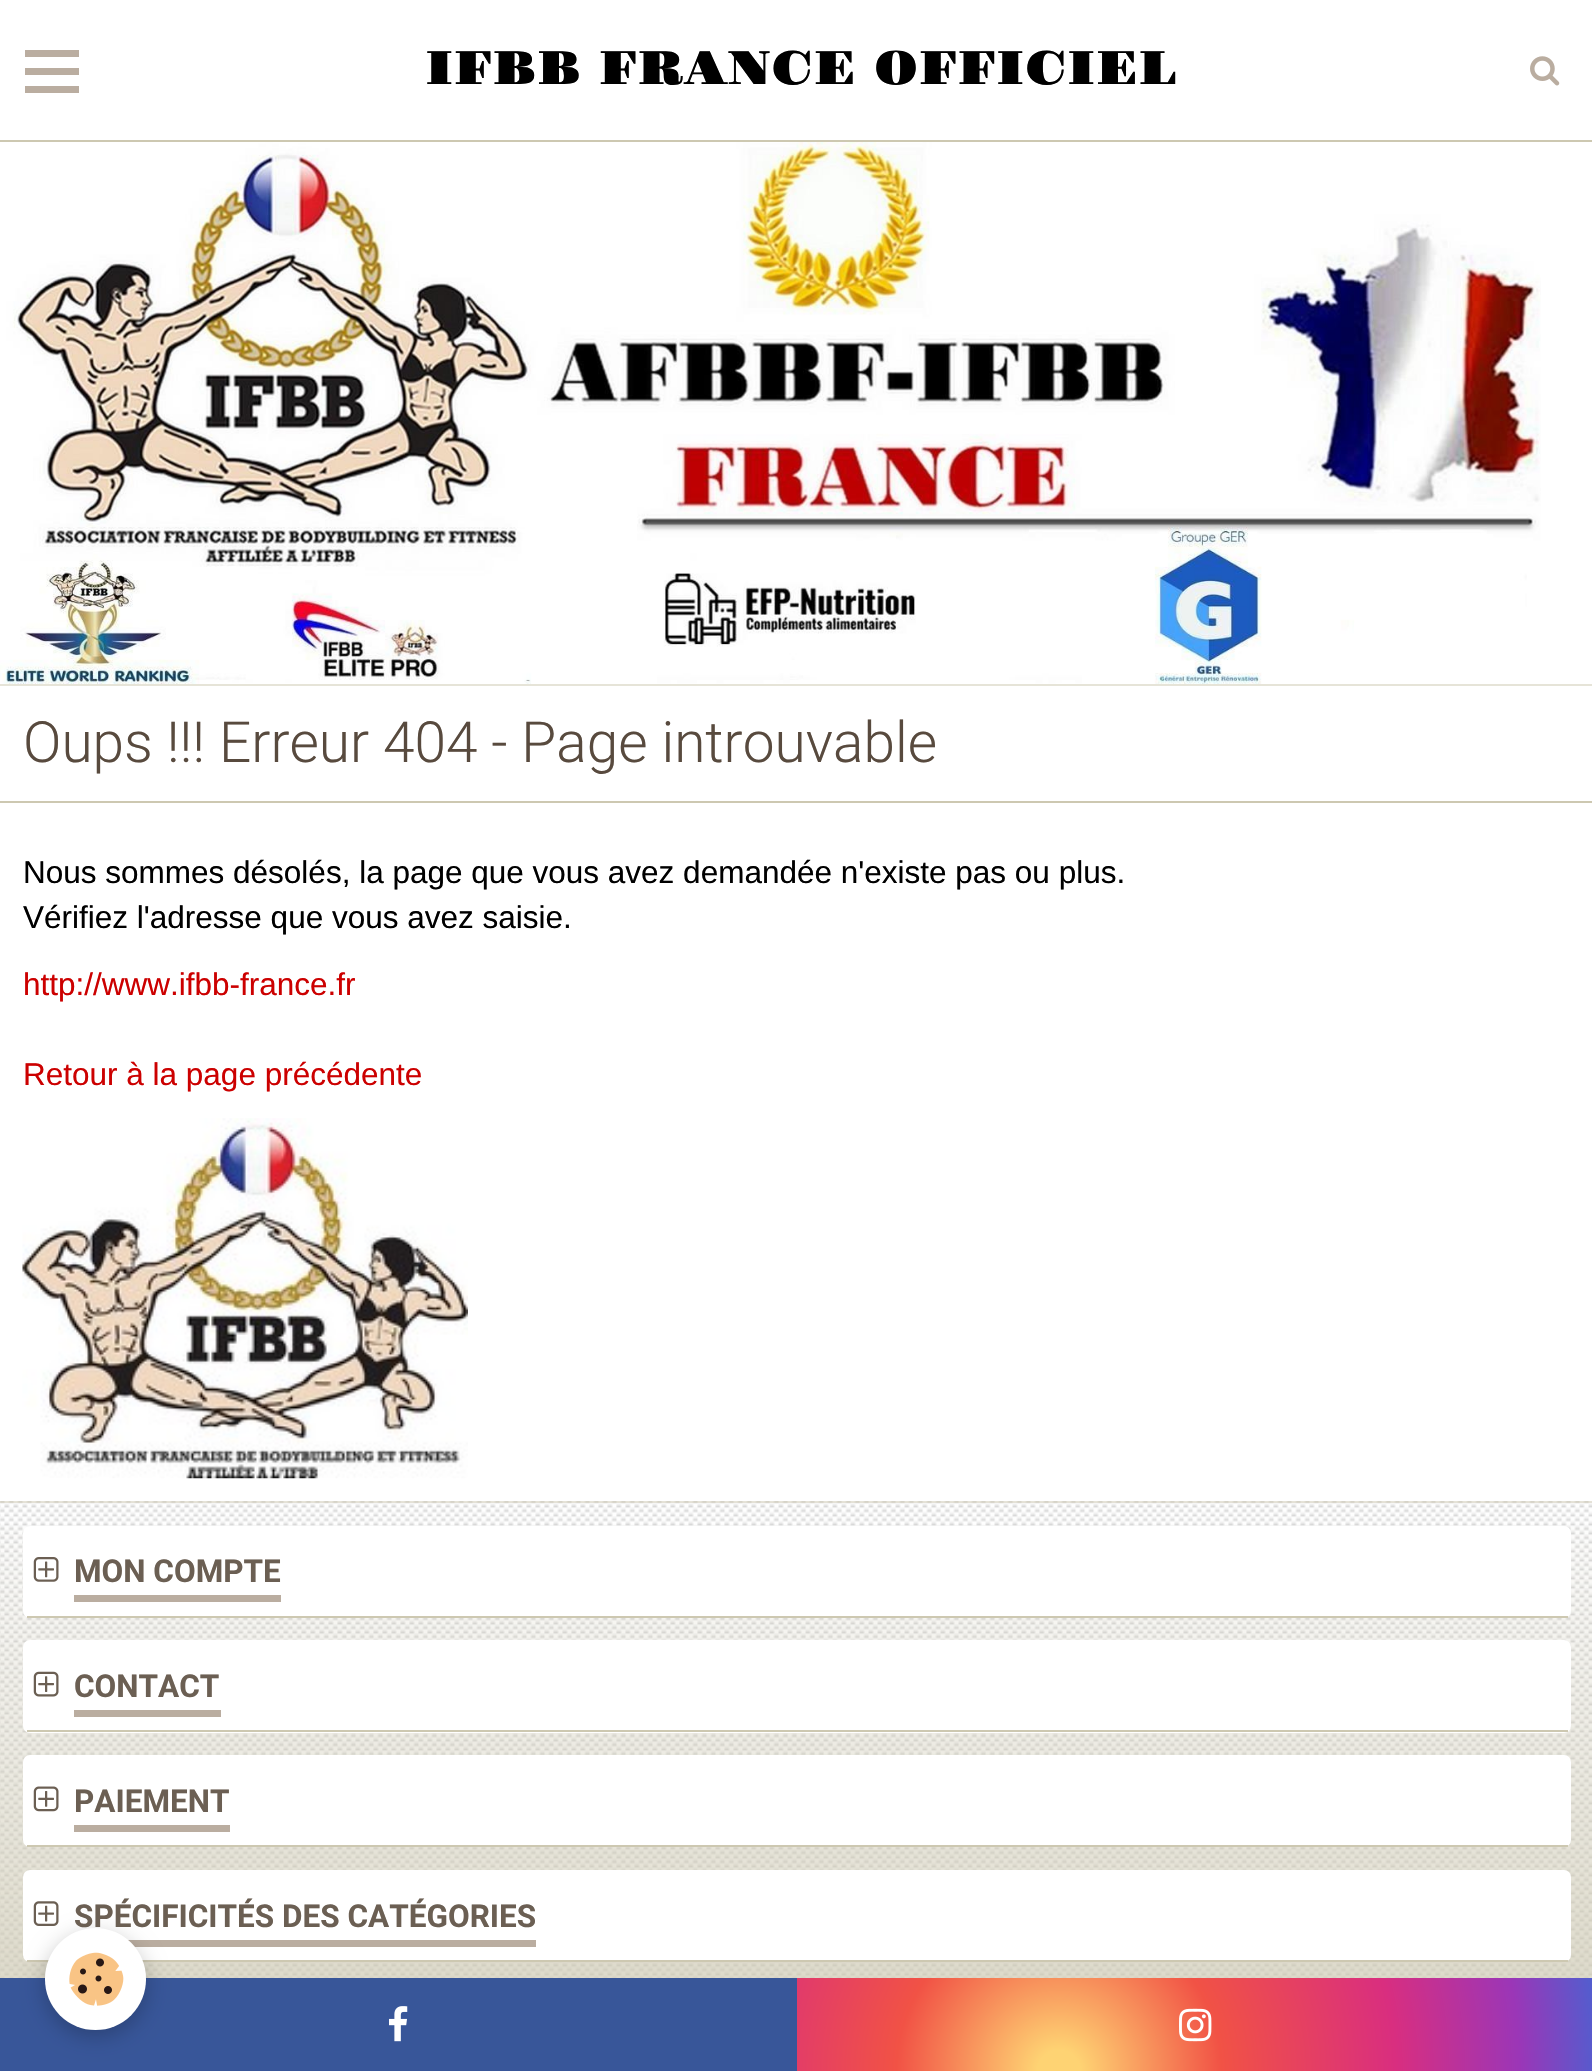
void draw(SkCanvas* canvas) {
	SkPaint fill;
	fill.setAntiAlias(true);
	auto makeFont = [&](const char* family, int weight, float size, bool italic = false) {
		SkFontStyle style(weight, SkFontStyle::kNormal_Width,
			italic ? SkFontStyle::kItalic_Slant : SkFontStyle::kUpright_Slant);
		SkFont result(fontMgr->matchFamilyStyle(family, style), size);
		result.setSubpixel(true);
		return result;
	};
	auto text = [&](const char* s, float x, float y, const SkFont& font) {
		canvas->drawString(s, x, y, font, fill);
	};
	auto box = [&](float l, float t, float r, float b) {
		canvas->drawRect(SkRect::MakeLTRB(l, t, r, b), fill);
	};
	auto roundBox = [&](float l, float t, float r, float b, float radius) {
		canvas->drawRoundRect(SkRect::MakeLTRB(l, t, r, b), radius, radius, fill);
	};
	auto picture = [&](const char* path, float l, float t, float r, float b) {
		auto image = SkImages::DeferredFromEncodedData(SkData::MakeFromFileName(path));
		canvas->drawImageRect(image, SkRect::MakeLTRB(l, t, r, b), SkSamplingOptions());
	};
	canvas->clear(0xFFFFFFFF);
	fill.setColor(0xFFCDC8B1);
	box(0, 140, 1592, 142);
	fill.setColor(0xFFBAADA0);
	box(25, 68, 79, 75);
	box(25, 50, 79, 57);
	box(25, 86, 79, 93);
	picture("image0.png", 1530, 56, 1560, 86);
	fill.setColor(0xFFE6E4D8);
	box(0, 684, 1592, 686);
	picture("image1.png", 0, 142, 1541, 684);
	fill.setColor(0xFFCDC8B1);
	box(0, 801, 1592, 803);
	picture("image2.png", 22, 1118, 468, 1479);
	picture("image3.png", 0, 1501, 1592, 1978);
	fill.setColor(0x80CDC8B1);
	box(0, 1501, 1592, 1503);
	{
		const SkColor colors[] = {0xFFCDC8B1, 0x00CDC8B1};
		const float stops[] = {0, 1};
		const SkPoint ends[] = {{797, 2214}, {797, 1503}};
		fill.setShader(SkGradientShader::MakeLinear(ends, colors, stops, 2, SkTileMode::kClamp));
		fill.setAlpha(255);
	}
	box(0, 1524, 1592, 1978);
	fill.setShader(nullptr);
	fill.setColor(0xFFFFFFFF);
	roundBox(23, 1526, 1571, 1618, 7);
	fill.setColor(0xFFCDC8B1);
	box(27, 1616, 1568, 1618);
	picture("image4.png", 33, 1557, 59, 1582);
	fill.setColor(0xFFBAADA0);
	box(74, 1595, 281, 1602);
	fill.setColor(0xFFFFFFFF);
	roundBox(23, 1640, 1571, 1733, 7);
	fill.setColor(0xFFCDC8B1);
	box(27, 1730, 1568, 1732);
	picture("image5.png", 33, 1671, 59, 1697);
	fill.setColor(0xFFBAADA0);
	box(74, 1710, 221, 1717);
	fill.setColor(0xFFFFFFFF);
	roundBox(23, 1755, 1571, 1847, 7);
	fill.setColor(0xFFCDC8B1);
	box(27, 1845, 1568, 1847);
	picture("image6.png", 33, 1786, 59, 1812);
	fill.setColor(0xFFBAADA0);
	box(74, 1825, 230, 1832);
	fill.setColor(0xFFFFFFFF);
	roundBox(23, 1870, 1571, 1962, 7);
	fill.setColor(0xFFCDC8B1);
	box(27, 1960, 1568, 1962);
	picture("image7.png", 33, 1901, 59, 1926);
	fill.setColor(0xFFBAADA0);
	box(128, 1940, 536, 1947);
	fill.setColor(0xFF385699);
	box(0, 1978, 797, 2071);
	fill.setColor(0x3D000000);
	fill.setMaskFilter(SkMaskFilter::MakeBlur(kNormal_SkBlurStyle, 11));
	canvas->drawRoundRect(SkRect::MakeLTRB(45, 1935, 146, 2036), 50.5f, 50.5f, fill);
	fill.setMaskFilter(nullptr);
	fill.setColor(0xFFFFFFFF);
	roundBox(45, 1928, 146, 2030, 50.5f);
	picture("image8.png", 69, 1952, 124, 2006);
	picture("image9.png", 389, 2006, 408, 2042);
	{
		const SkColor colors[] = {0xFFFED373, 0xFFF15245, 0xFFD92E7F, 0xFF9B36B7, 0xFF515ECF};
		const float stops[] = {0.04f, 0.3f, 0.62f, 0.85f, 1};
		fill.setShader(SkGradientShader::MakeRadial({1059, 2072}, 542, colors, stops, 5, SkTileMode::kClamp));
		fill.setAlpha(255);
	}
	box(797, 1978, 1592, 2071);
	picture("image10.png", 1179, 2008, 1212, 2042);
	auto font1 = makeFont("Gravitas One", 400, 47.25f);
	fill.setShader(nullptr);
	fill.setColor(0xFF000000);
	text("IFBB FRANCE OFFICIEL", 425, 84, font1);
	auto font2 = makeFont("Roboto", 300, 56.75f);
	fill.setColor(0xFF584A3E);
	text("Oups !!! Erreur 404 - Page introuvable", 23, 762, font2);
	auto font3 = makeFont("Liberation Sans", 400, 31.5f);
	fill.setColor(0xFF000000);
	text("Nous sommes désolés, la page que vous avez demandée n'existe pas ou plus.", 23, 883, font3);
	text("Vérifiez l'adresse que vous avez saisie.", 23, 928, font3);
	fill.setColor(0xFFCC0000);
	text("http://www.ifbb-france.fr", 23, 995, font3);
	text("Retour à la page précédente", 23, 1085, font3);
	auto font4 = makeFont("Roboto", 700, 31.5f);
	fill.setColor(0xFF6B5F53);
	text("MON COMPTE", 74, 1582, font4);
	text("CONTACT", 74, 1697, font4);
	text("PAIEMENT", 74, 1812, font4);
	text("SPÉCIFICITÉS DES CATÉGORIES", 74, 1927, font4);
}
